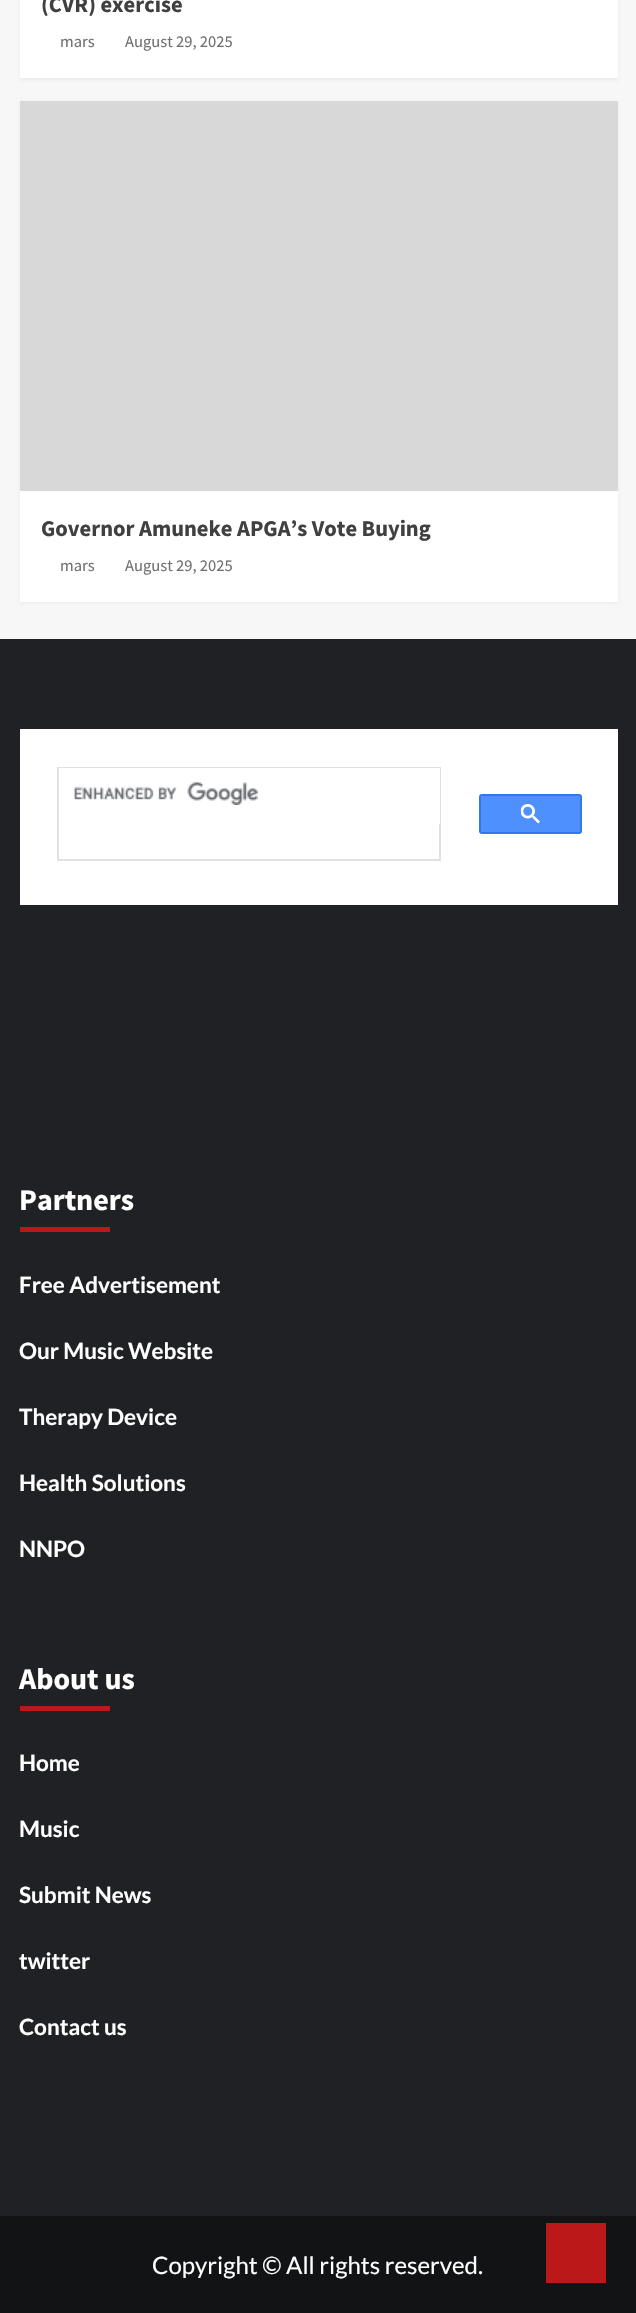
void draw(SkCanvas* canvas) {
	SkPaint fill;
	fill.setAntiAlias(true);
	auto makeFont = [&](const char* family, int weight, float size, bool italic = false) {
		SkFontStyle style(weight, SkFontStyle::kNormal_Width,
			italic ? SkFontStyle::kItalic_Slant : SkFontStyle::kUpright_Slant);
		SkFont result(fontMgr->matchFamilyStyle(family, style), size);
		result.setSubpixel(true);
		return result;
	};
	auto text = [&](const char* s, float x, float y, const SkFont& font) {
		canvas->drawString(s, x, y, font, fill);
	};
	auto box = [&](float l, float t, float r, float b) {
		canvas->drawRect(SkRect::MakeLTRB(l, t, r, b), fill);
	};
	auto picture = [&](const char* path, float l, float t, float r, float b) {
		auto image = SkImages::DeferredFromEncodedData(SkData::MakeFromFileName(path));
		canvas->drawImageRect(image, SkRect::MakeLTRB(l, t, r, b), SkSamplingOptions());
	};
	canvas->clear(0xFFF7F7F7);
	fill.setColor(0x0D000000);
	fill.setMaskFilter(SkMaskFilter::MakeBlur(kNormal_SkBlurStyle, 1.5f));
	canvas->drawRect(SkRect::MakeLTRB(20, -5, 618, 80), fill);
	fill.setMaskFilter(nullptr);
	fill.setColor(0xFFFFFFFF);
	box(20, 0, 618, 78);
	fill.setColor(0x0D000000);
	fill.setMaskFilter(SkMaskFilter::MakeBlur(kNormal_SkBlurStyle, 1.5f));
	canvas->drawRect(SkRect::MakeLTRB(20, 102, 618, 603), fill);
	fill.setMaskFilter(nullptr);
	fill.setColor(0xFFFFFFFF);
	box(20, 491, 618, 602);
	fill.setColor(0xFFD8D8D8);
	box(20, 101, 618, 491);
	fill.setColor(0xFF1F2125);
	box(0, 639, 636, 2216);
	fill.setColor(0xFFFFFFFF);
	box(20, 729, 618, 905);
	fill.setStyle(SkPaint::kStroke_Style);
	fill.setStrokeWidth(2);
	fill.setColor(0xFFDFE1E5);
	canvas->drawRect(SkRect::MakeLTRB(58, 768, 440, 860), fill);
	fill.setStyle(SkPaint::kFill_Style);
	fill.setColor(0xFFFFFFFF);
	box(401, 768, 440, 770);
	box(59, 768, 402, 769);
	picture("image0.png", 73, 782, 258, 805);
	box(439, 768, 440, 824);
	fill.setColor(0xFF4D90FE);
	canvas->drawRoundRect(SkRect::MakeLTRB(480, 795, 581, 833), 2, 2, fill);
	fill.setStyle(SkPaint::kStroke_Style);
	fill.setColor(0xFF3079ED);
	canvas->drawRoundRect(SkRect::MakeLTRB(480, 795, 581, 833), 2, 2, fill);
	picture("image1.png", 521, 804, 540, 824);
	fill.setStyle(SkPaint::kFill_Style);
	fill.setColor(0xFFBB1919);
	box(20, 1227, 110, 1232);
	box(20, 1706, 110, 1711);
	fill.setColor(0xFF121314);
	box(0, 2216, 636, 2313);
	fill.setColor(0xFFBB1919);
	box(546, 2223, 606, 2283);
	auto font1 = makeFont("Source Sans Pro", 700, 22.5f);
	fill.setColor(0xFF404040);
	text("(CVR) exercise", 41, 12, font1);
	auto font2 = makeFont("Source Sans Pro", 400, 16.5f);
	fill.setColor(0xFF707070);
	text("mars", 60, 47, font2);
	text("August 29, 2025", 125, 47, font2);
	fill.setColor(0xFF404040);
	text("Governor Amuneke APGA’s Vote Buying", 41, 536, font1);
	fill.setColor(0xFF707070);
	text("mars", 60, 571, font2);
	text("August 29, 2025", 125, 571, font2);
	auto font3 = makeFont("Source Sans Pro", 700, 30);
	fill.setColor(0xFFFFFFFF);
	text("Partners", 19, 1210, font3);
	auto font4 = makeFont("Lato", 700, 22.5f);
	text("Free Advertisement", 19, 1293, font4);
	text("Our Music Website", 19, 1359, font4);
	text("Therapy Device", 19, 1425, font4);
	text("Health Solutions", 19, 1491, font4);
	text("NNPO", 19, 1557, font4);
	text("About us", 19, 1689, font3);
	text("Home", 19, 1771, font4);
	text("Music", 19, 1837, font4);
	text("Submit News", 19, 1903, font4);
	text("twitter", 19, 1969, font4);
	text("Contact us", 19, 2035, font4);
	auto font5 = makeFont("Lato", 400, 24);
	text("Copyright © All rights reserved.", 152, 2274, font5);
}
